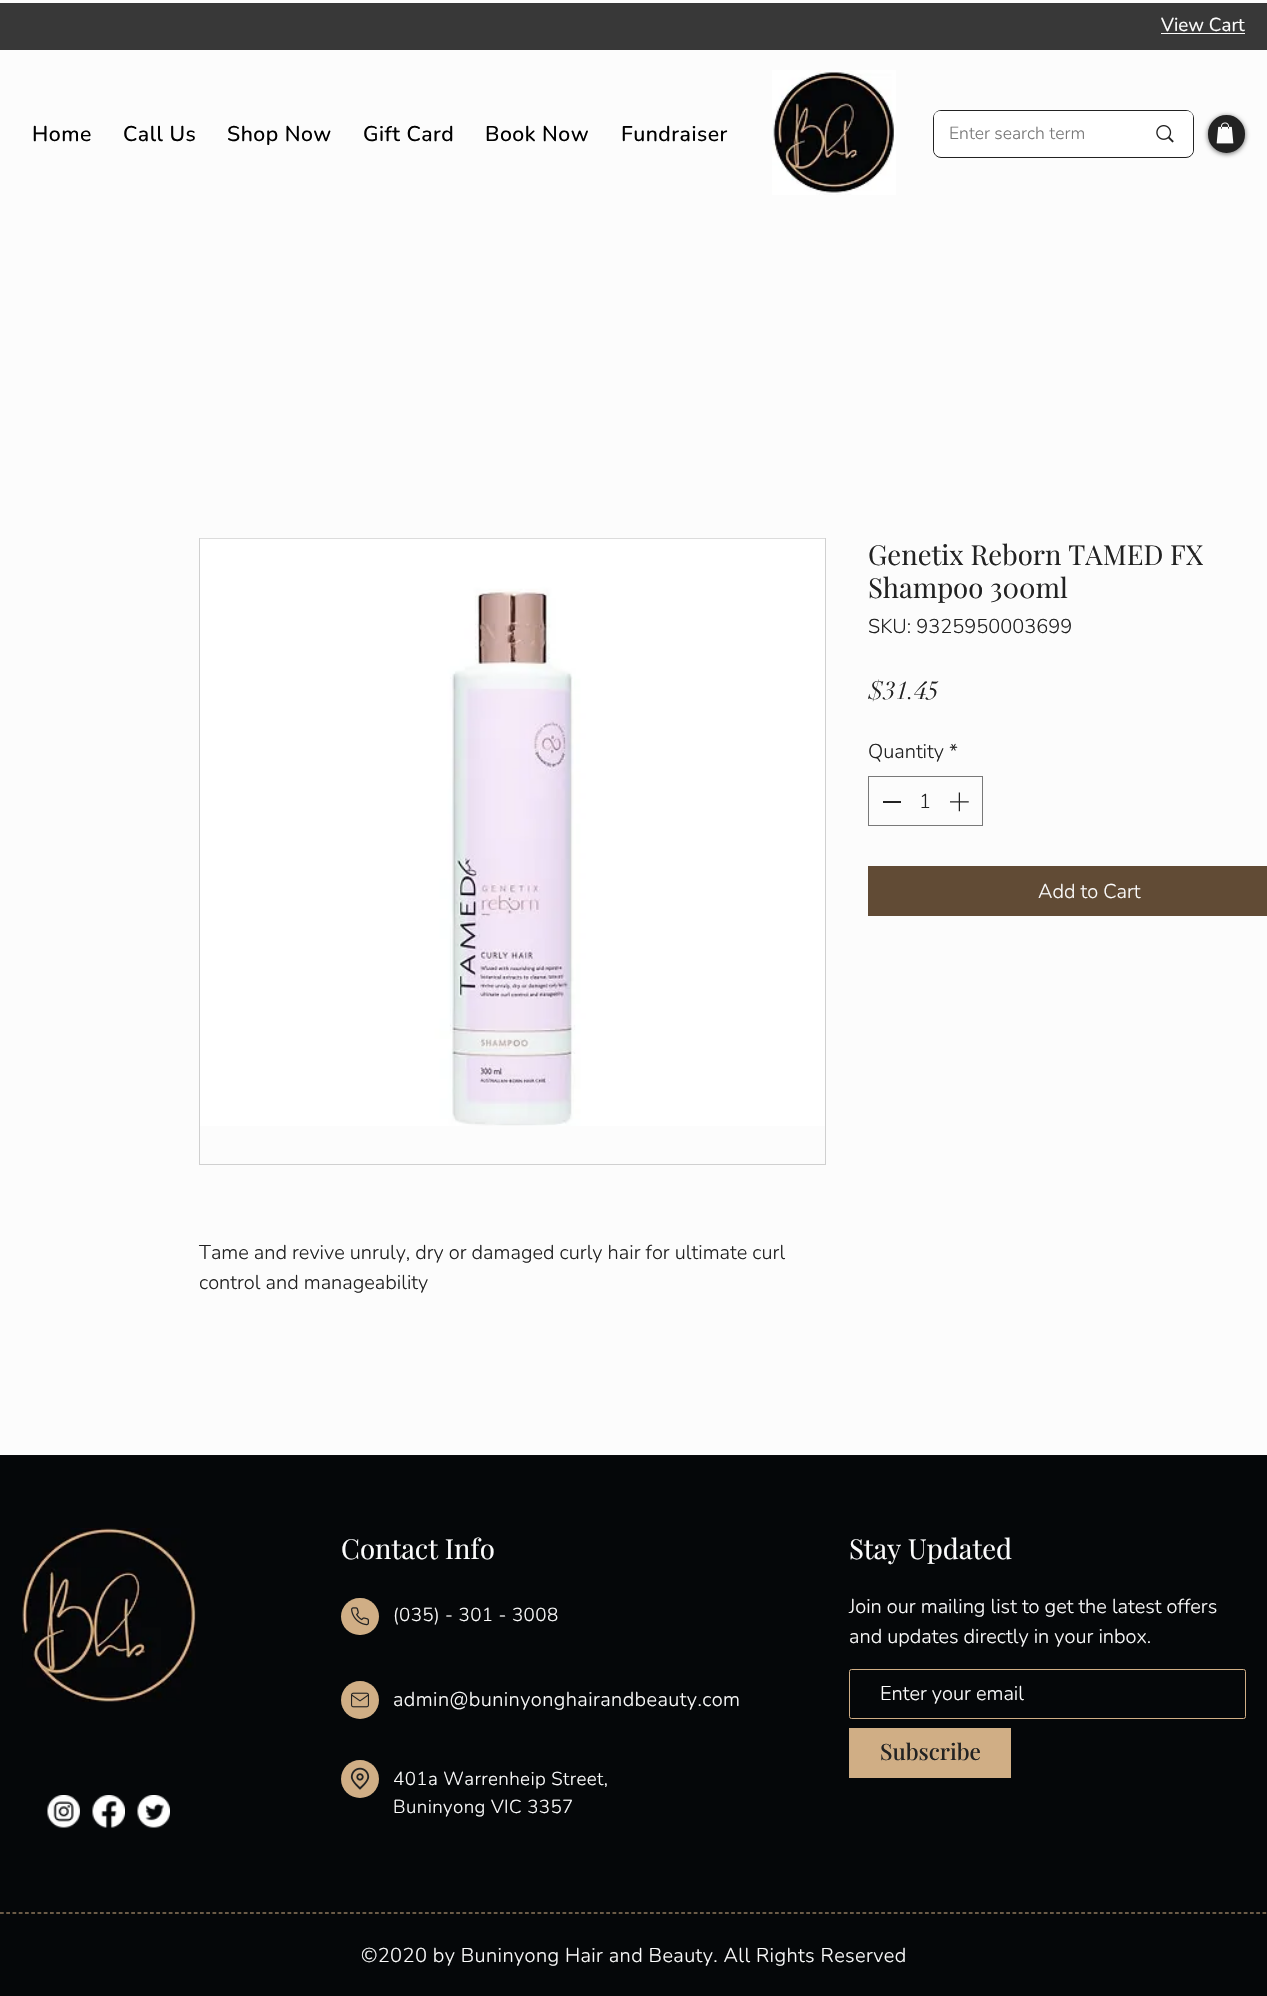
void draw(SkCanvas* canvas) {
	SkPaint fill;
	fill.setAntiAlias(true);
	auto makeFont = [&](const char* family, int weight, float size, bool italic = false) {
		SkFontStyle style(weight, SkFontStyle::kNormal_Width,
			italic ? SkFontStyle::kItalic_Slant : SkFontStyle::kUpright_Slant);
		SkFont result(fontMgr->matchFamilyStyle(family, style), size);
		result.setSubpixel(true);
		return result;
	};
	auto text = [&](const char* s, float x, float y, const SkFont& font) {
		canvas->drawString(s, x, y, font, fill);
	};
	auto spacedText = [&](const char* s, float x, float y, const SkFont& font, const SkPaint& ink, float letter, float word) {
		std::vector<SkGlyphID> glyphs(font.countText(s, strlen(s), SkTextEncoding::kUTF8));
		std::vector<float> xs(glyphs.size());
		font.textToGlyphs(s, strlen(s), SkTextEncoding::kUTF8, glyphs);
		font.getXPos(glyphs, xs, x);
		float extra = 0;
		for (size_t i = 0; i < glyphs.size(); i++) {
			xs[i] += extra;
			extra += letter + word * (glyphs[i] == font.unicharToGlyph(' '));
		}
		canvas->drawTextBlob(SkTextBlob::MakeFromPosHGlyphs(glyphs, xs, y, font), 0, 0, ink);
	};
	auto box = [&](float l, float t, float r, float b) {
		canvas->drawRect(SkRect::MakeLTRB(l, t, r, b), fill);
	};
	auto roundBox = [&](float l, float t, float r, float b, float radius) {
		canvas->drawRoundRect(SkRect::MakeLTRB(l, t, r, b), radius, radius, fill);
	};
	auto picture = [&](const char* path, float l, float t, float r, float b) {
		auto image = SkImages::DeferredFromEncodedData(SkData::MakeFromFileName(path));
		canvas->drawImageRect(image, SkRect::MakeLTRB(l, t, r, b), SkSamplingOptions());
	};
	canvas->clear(0xFFFCFCFC);
	fill.setColor(0xFF383838);
	box(0, 3, 1267, 50);
	fill.setColor(0xFFFCFCFC);
	box(1161, 33, 1245, 34);
	picture("image0.png", 772, 70, 896, 195);
	fill.setStyle(SkPaint::kStroke_Style);
	fill.setStrokeWidth(1);
	fill.setColor(0xFF222222);
	canvas->drawRoundRect(SkRect::MakeLTRB(933.5f, 110.5f, 1193.5f, 157.5f), 7.5f, 7.5f, fill);
	fill.setStyle(SkPaint::kFill_Style);
	fill.setColor(0xFFFFFFFF);
	roundBox(934, 111, 1193, 156, 6);
	picture("image1.png", 1156, 125, 1174, 143);
	fill.setColor(0x99000000);
	fill.setMaskFilter(SkMaskFilter::MakeBlur(kNormal_SkBlurStyle, 2.5f));
	canvas->drawRoundRect(SkRect::MakeLTRB(1208, 116, 1245, 154), 18.5f, 18.5f, fill);
	fill.setMaskFilter(nullptr);
	fill.setColor(0xFF222222);
	canvas->drawRoundRect(SkRect::MakeLTRB(1210, 117, 1243, 151), 16.5f, 16.5f, fill);
	fill.setStyle(SkPaint::kStroke_Style);
	fill.setStrokeWidth(4);
	canvas->drawRoundRect(SkRect::MakeLTRB(1210, 117, 1243, 151), 16.5f, 16.5f, fill);
	picture("image2.png", 1216, 122, 1234, 144);
	fill.setStrokeWidth(1);
	fill.setColor(0xFF797979);
	canvas->drawRect(SkRect::MakeLTRB(868.5f, 776.5f, 982.5f, 825.5f), fill);
	fill.setStyle(SkPaint::kFill_Style);
	fill.setColor(0xFF222222);
	box(883, 801, 901, 803);
	picture("image3.png", 950, 792, 969, 812);
	fill.setColor(0xFF614B35);
	box(868, 866, 1267, 916);
	fill.setStyle(SkPaint::kStroke_Style);
	fill.setColor(0xFFD0D0D0);
	canvas->drawRect(SkRect::MakeLTRB(199.5f, 538.5f, 825.5f, 1164.5f), fill);
	picture("image4.png", 200, 538, 825, 1126);
	fill.setStyle(SkPaint::kFill_Style);
	fill.setColor(0xFF050709);
	box(0, 1456, 1267, 1996);
	fill.setColor(0xFF090B0D);
	box(0, 1455, 1267, 1456);
	picture("image5.png", 22, 1528, 196, 1702);
	fill.setColor(0xFFD0AE85);
	roundBox(341, 1598, 379, 1635, 18.5f);
	picture("image6.png", 351, 1607, 369, 1626);
	fill.setStyle(SkPaint::kStroke_Style);
	canvas->drawRoundRect(SkRect::MakeLTRB(849.5f, 1669.5f, 1245.5f, 1718.5f), 2, 2, fill);
	fill.setStyle(SkPaint::kFill_Style);
	box(849, 1728, 1011, 1778);
	canvas->drawCircle(360, 1700, 19, fill);
	picture("image7.png", 351, 1692, 369, 1708);
	picture("image8.png", 47, 1795, 80, 1828);
	picture("image9.png", 92, 1795, 125, 1828);
	picture("image10.png", 137, 1795, 170, 1828);
	canvas->drawCircle(360, 1779, 19, fill);
	picture("image11.png", 350, 1767, 370, 1790);
	fill.setStyle(SkPaint::kStroke_Style);
	fill.setStrokeWidth(1.2f);
	fill.setPathEffect(SkDashPathEffect::Make({{3.75f, 2.5f}}, 0));
	canvas->drawPath(SkPathBuilder().moveTo(0, 1913).lineTo(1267.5f, 1913).detach(), fill);
	fill.setPathEffect(nullptr);
	auto font1 = makeFont("Nunito", 400, 18.75f);
	fill.setStyle(SkPaint::kFill_Style);
	fill.setColor(0xFFFCFCFC);
	text("View Cart", 1161, 31, font1);
	auto font2 = makeFont("Nunito", 500, 21.25f);
	fill.setColor(0xFF000000);
	spacedText("Home", 32, 141, font2, fill, 0.5f, 0);
	spacedText("Call Us", 123, 141, font2, fill, 0.5f, 0);
	spacedText("Shop Now", 227, 141, font2, fill, 0.5f, 0);
	spacedText("Gift Card", 363, 141, font2, fill, 0.5f, 0);
	spacedText("Book Now", 485, 141, font2, fill, 0.5f, 0);
	spacedText("Fundraiser", 621, 141, font2, fill, 0.5f, 0);
	auto font3 = makeFont("Nunito", 300, 17.5f);
	fill.setColor(0xFF787878);
	text("Enter search term", 949, 139, font3);
	auto font4 = makeFont("Playfair Display", 400, 27.5f);
	fill.setColor(0xFF222222);
	text("Genetix Reborn TAMED FX", 868, 565, font4);
	text("Shampoo 300ml", 868, 598, font4);
	auto font5 = makeFont("Nunito", 300, 20);
	text("SKU: 9325950003699", 868, 633, font5);
	auto font6 = makeFont("didot", 400, 25);
	text("$31.45", 868, 699, font6);
	text("Quantity *", 868, 758, font5);
	text("1", 919, 808, font5);
	fill.setColor(0xFFFCFCFC);
	text("Add to Cart", 1038, 898, font5);
	fill.setColor(0xFF222222);
	text("Tame and revive unruly, dry or damaged curly hair for ultimate curl", 199, 1259, font5);
	text("control and manageability", 199, 1289, font5);
	fill.setColor(0xFFFCFCFC);
	text("Contact Info", 341, 1559, font4);
	text("Stay Updated", 849, 1559, font4);
	auto font7 = makeFont("Nunito", 300, 18.75f);
	spacedText("(035) - 301 - 3008", 393, 1621, font7, fill, 0.4f, 0);
	text("Join our mailing list to get the latest offers", 849, 1613, font5);
	text("and updates directly in your inbox.", 849, 1643, font5);
	text("Enter your email", 880, 1700, font5);
	auto font8 = makeFont("Playfair Display", 500, 22.5f);
	fill.setColor(0xFF222222);
	text("Subscribe", 880, 1760, font8);
	fill.setColor(0xFFFCFCFC);
	spacedText("admin@buninyonghairandbeauty.com", 393, 1706, font5, fill, 0.4f, 0);
	spacedText("401a Warrenheip Street,", 393, 1785, font7, fill, 0.4f, 0);
	spacedText("Buninyong VIC 3357", 393, 1813, font7, fill, 0.4f, 0);
	spacedText("©2020 by Buninyong Hair and Beauty. All Rights Reserved", 361, 1962, font5, fill, 0.4f, 0);
}
